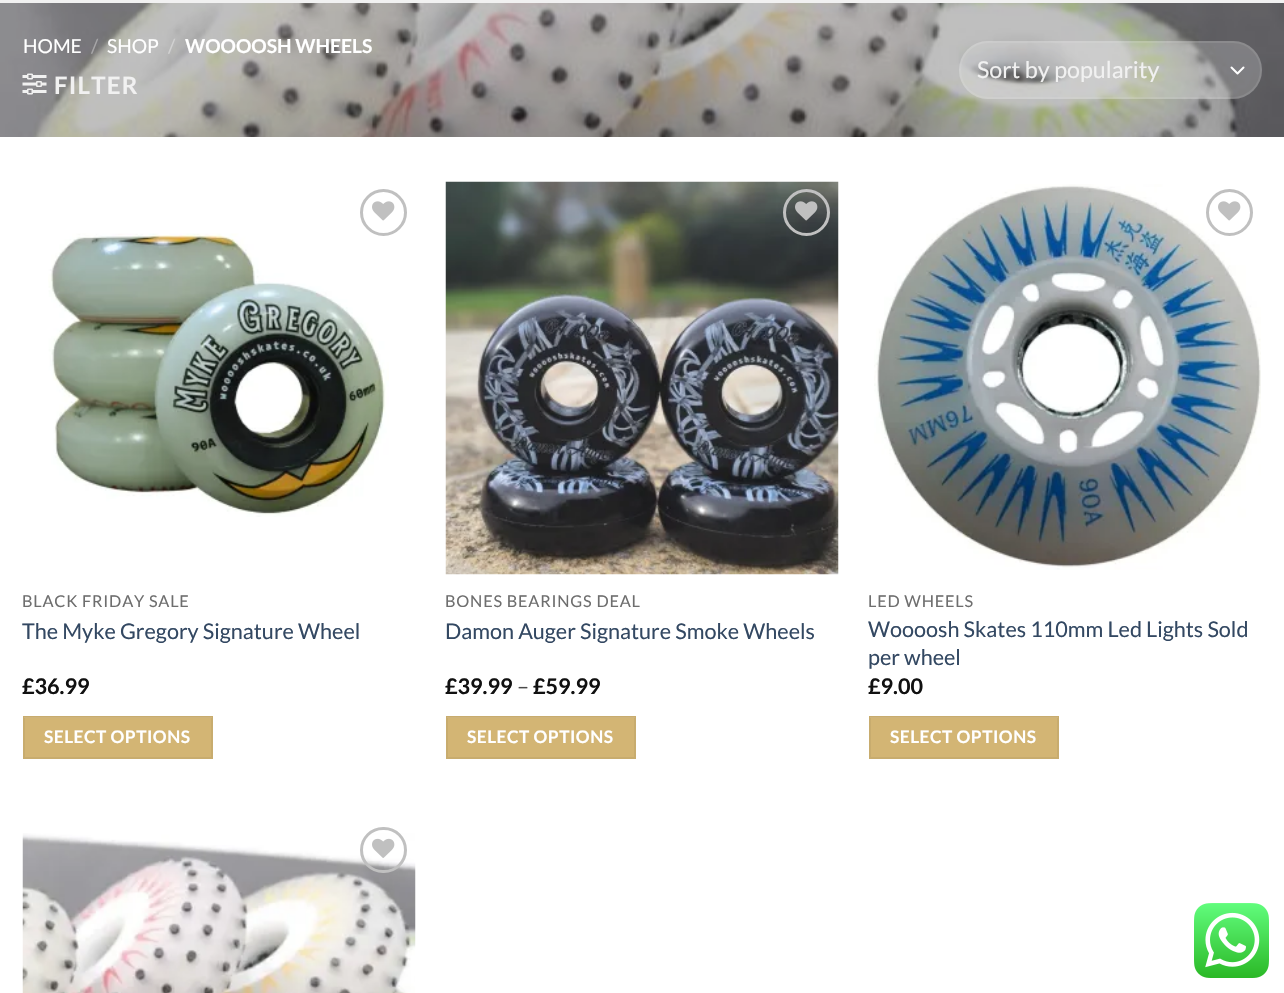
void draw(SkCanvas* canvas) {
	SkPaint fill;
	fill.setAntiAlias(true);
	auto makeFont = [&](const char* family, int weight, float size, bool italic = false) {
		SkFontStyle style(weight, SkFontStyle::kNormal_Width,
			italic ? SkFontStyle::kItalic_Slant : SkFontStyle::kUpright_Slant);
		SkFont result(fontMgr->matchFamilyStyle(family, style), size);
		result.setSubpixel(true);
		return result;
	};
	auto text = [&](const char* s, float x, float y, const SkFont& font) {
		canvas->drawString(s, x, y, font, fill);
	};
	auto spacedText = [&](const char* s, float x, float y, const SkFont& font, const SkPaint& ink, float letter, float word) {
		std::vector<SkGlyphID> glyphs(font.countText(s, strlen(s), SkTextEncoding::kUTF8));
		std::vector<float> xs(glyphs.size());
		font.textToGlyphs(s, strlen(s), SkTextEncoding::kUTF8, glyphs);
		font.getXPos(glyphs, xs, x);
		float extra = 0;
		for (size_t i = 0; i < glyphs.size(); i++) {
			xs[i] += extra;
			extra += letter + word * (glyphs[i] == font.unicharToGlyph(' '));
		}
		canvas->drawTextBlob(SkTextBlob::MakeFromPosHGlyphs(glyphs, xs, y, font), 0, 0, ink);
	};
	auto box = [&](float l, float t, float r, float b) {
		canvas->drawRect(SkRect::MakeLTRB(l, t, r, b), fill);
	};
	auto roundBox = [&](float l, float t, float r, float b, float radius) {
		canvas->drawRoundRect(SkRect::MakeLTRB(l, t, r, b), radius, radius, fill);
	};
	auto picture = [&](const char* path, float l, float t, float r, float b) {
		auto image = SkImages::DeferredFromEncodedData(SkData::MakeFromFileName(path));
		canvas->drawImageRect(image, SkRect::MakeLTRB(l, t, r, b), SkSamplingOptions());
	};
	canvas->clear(0xFFFFFFFF);
	fill.setColor(0xFFF1F1F1);
	box(0, 0, 1284, 3);
	picture("image0.png", 0, 3, 1284, 137);
	picture("image1.png", 22, 73, 47, 95);
	fill.setColor(0x33FFFFFF);
	roundBox(959, 41, 1262, 99, 29);
	fill.setStyle(SkPaint::kStroke_Style);
	fill.setStrokeWidth(2);
	fill.setStrokeCap(SkPaint::kRound_Cap);
	fill.setStrokeJoin(SkPaint::kRound_Join);
	fill.setColor(0xFFFFFFFF);
	canvas->drawPath(SkPathBuilder().moveTo(1231.5f, 67.5f).lineTo(1237.5f, 73.5f).lineTo(1243.5f, 67.5f).detach(), fill);
	fill.setStrokeCap(SkPaint::kButt_Cap);
	fill.setStrokeJoin(SkPaint::kMiter_Join);
	fill.setColor(0x17FFFFFF);
	canvas->drawRoundRect(SkRect::MakeLTRB(960, 42, 1261, 98), 28, 28, fill);
	picture("image3.png", 48, 233, 389, 517);
	fill.setStrokeWidth(3);
	fill.setColor(0xFFC0C0C0);
	canvas->drawCircle(383.5f, 212.5f, 22, fill);
	picture("image2.png", 372, 201, 395, 221);
	fill.setStyle(SkPaint::kFill_Style);
	fill.setColor(0xFFD3B574);
	canvas->drawRect(SkRect::MakeLTRB(24, 717, 212, 758), fill);
	fill.setStyle(SkPaint::kStroke_Style);
	fill.setStrokeWidth(2);
	fill.setColor(0xFFC8AC6E);
	canvas->drawRect(SkRect::MakeLTRB(24, 717, 212, 758), fill);
	canvas->save();
	canvas->clipRect(SkRect::MakeLTRB(24, 717, 212, 758));
	fill.setStyle(SkPaint::kFill_Style);
	fill.setColor(0xFFCEB47D);
	canvas->drawPath(SkPathBuilder(SkPathFillType::kEvenOdd).moveTo(-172, 568).lineTo(408, 568).lineTo(408, 906).lineTo(-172, 906).close().moveTo(-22, 718).lineTo(261, 718).lineTo(261, 759).lineTo(-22, 759).close().detach(), fill);
	canvas->restore();
	picture("image4.png", 445, 181, 839, 575);
	fill.setStyle(SkPaint::kStroke_Style);
	fill.setStrokeWidth(3);
	fill.setColor(0xFFC0C0C0);
	canvas->drawCircle(806.5f, 212.5f, 22, fill);
	picture("image5.png", 795, 201, 818, 221);
	fill.setStyle(SkPaint::kFill_Style);
	fill.setColor(0xFFD3B574);
	canvas->drawRect(SkRect::MakeLTRB(447, 717, 635, 758), fill);
	fill.setStyle(SkPaint::kStroke_Style);
	fill.setStrokeWidth(2);
	fill.setColor(0xFFC8AC6E);
	canvas->drawRect(SkRect::MakeLTRB(447, 717, 635, 758), fill);
	canvas->save();
	canvas->clipRect(SkRect::MakeLTRB(447, 717, 635, 758));
	fill.setStyle(SkPaint::kFill_Style);
	fill.setColor(0xFFCEB47D);
	canvas->drawPath(SkPathBuilder(SkPathFillType::kEvenOdd).moveTo(250, 568).lineTo(831, 568).lineTo(831, 906).lineTo(250, 906).close().moveTo(400, 718).lineTo(684, 718).lineTo(684, 759).lineTo(400, 759).close().detach(), fill);
	canvas->restore();
	picture("image6.png", 874, 184, 1261, 570);
	fill.setStyle(SkPaint::kStroke_Style);
	fill.setStrokeWidth(3);
	fill.setColor(0xFFC0C0C0);
	canvas->drawCircle(1229.5f, 212.5f, 22, fill);
	picture("image2.png", 1218, 201, 1241, 221);
	fill.setStyle(SkPaint::kFill_Style);
	fill.setColor(0xFFD3B574);
	canvas->drawRect(SkRect::MakeLTRB(870, 717, 1058, 758), fill);
	fill.setStyle(SkPaint::kStroke_Style);
	fill.setStrokeWidth(2);
	fill.setColor(0xFFC8AC6E);
	canvas->drawRect(SkRect::MakeLTRB(870, 717, 1058, 758), fill);
	canvas->save();
	canvas->clipRect(SkRect::MakeLTRB(870, 717, 1058, 758));
	fill.setStyle(SkPaint::kFill_Style);
	fill.setColor(0xFFCEB47D);
	canvas->drawPath(SkPathBuilder(SkPathFillType::kEvenOdd).moveTo(674, 568).lineTo(1254, 568).lineTo(1254, 906).lineTo(674, 906).close().moveTo(824, 718).lineTo(1107, 718).lineTo(1107, 759).lineTo(824, 759).close().detach(), fill);
	canvas->restore();
	picture("image8.png", 22, 833, 416, 993);
	fill.setStyle(SkPaint::kStroke_Style);
	fill.setStrokeWidth(3);
	fill.setColor(0xFFC0C0C0);
	canvas->drawRoundRect(SkRect::MakeLTRB(361.5f, 828.5f, 405.5f, 871.5f), 21.5f, 21.5f, fill);
	picture("image7.png", 372, 838, 395, 858);
	picture("image9.png", 1194, 903, 1269, 978);
	auto font1 = makeFont("Lato", 400, 19.25f);
	fill.setStyle(SkPaint::kFill_Style);
	fill.setColor(0xFFFFFFFF);
	text("HOME", 23, 53, font1);
	fill.setColor(0xFFA7A6A8);
	text("/", 91, 53, font1);
	fill.setColor(0xFFFFFFFF);
	text("SHOP", 107, 53, font1);
	fill.setColor(0xFFD1D1D1);
	text("/", 168, 53, font1);
	auto font2 = makeFont("Lato", 700, 19.25f);
	fill.setColor(0xFFFFFFFF);
	text("WOOOOSH WHEELS", 185, 53, font2);
	auto font3 = makeFont("Lato", 700, 24);
	fill.setColor(0xFFF1F1F1);
	spacedText("FILTER", 54, 94, font3, fill, 1.25f, 0);
	auto font4 = makeFont("Lato", 400, 23.25f);
	text("Sort by popularity", 977, 78, font4);
	auto font5 = makeFont("Lato", 400, 16.25f);
	fill.setColor(0xFF6E6E6E);
	spacedText("BLACK FRIDAY SALE", 22, 607, font5, fill, 0.8f, 0);
	auto font6 = makeFont("Lato", 400, 21.6f);
	fill.setColor(0xFF334862);
	text("The Myke Gregory Signature Wheel", 22, 639, font6);
	auto font7 = makeFont("Lato", 700, 21.6f);
	fill.setColor(0xFF111111);
	text("£36.99", 22, 694, font7);
	auto font8 = makeFont("Lato", 700, 17.25f);
	fill.setColor(0xFFFFFFFF);
	spacedText("SELECT OPTIONS", 44, 743, font8, fill, 0.5f, 0);
	fill.setColor(0xFF6E6E6E);
	spacedText("BONES BEARINGS DEAL", 445, 607, font5, fill, 0.8f, 0);
	fill.setColor(0xFF334862);
	text("Damon Auger Signature Smoke Wheels", 445, 639, font6);
	fill.setColor(0xFF111111);
	text("£39.99", 445, 694, font7);
	fill.setColor(0xFF4A4A4A);
	text("–", 517, 694, font6);
	fill.setColor(0xFF111111);
	text("£59.99", 533, 694, font7);
	fill.setColor(0xFFFFFFFF);
	spacedText("SELECT OPTIONS", 467, 743, font8, fill, 0.5f, 0);
	fill.setColor(0xFF6E6E6E);
	spacedText("LED WHEELS", 868, 607, font5, fill, 0.8f, 0);
	fill.setColor(0xFF334862);
	text("Woooosh Skates 110mm Led Lights Sold", 868, 637, font6);
	text("per wheel", 868, 665, font6);
	fill.setColor(0xFF111111);
	text("£9.00", 868, 694, font7);
	fill.setColor(0xFFFFFFFF);
	spacedText("SELECT OPTIONS", 890, 743, font8, fill, 0.5f, 0);
}
